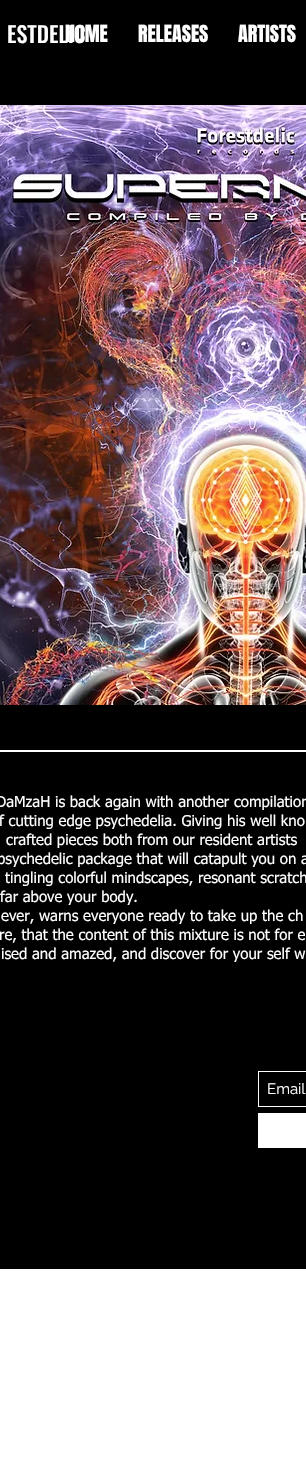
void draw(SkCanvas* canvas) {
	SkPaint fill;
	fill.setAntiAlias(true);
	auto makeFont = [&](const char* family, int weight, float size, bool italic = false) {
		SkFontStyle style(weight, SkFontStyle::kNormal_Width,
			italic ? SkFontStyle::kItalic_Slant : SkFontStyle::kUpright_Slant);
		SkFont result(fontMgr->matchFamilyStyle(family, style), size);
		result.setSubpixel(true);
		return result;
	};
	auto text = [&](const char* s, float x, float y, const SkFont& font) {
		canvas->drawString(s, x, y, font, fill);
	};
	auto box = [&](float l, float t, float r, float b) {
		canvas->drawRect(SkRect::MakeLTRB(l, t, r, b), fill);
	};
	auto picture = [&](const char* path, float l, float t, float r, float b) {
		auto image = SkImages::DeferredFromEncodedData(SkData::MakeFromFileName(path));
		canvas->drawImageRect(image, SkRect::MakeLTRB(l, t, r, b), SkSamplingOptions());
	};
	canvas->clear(0xFFFFFFFF);
	fill.setColor(0xFF000000);
	box(0, 0, 306, 1269);
	picture("image0.png", 0, 105, 306, 705);
	fill.setColor(0xFFFFFFFF);
	box(0, 750, 306, 752);
	fill.setStyle(SkPaint::kStroke_Style);
	fill.setStrokeWidth(1);
	canvas->drawRect(SkRect::MakeLTRB(258.5f, 1071.5f, 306.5f, 1106.5f), fill);
	fill.setStyle(SkPaint::kFill_Style);
	box(258, 1113, 306, 1148);
	auto font1 = makeFont("Oswald", 500, 22);
	text("ESTDELIC", 7, 43, font1);
	auto font2 = makeFont("Anton", 400, 20);
	text("HOME", 65, 42, font2);
	text("RELEASES", 138, 42, font2);
	text("ARTISTS", 238, 42, font2);
	auto font3 = makeFont("tahoma", 400, 15);
	text("DaMzaH is back again with another compilation", -4, 807, font3);
	text("f cutting edge psychedelia. Giving his well kno", -1, 826, font3);
	text("crafted pieces both from our resident artists", 6, 845, font3);
	text("psychedelic package that will catapult you on a", -3, 864, font3);
	text("tingling colorful mindscapes, resonant scratch", 5, 883, font3);
	text("far above your body.", 0, 902, font3);
	text("ever, warns everyone ready to take up the ch", 1, 921, font3);
	text("re, that the content of this mixture is not for e", -1, 940, font3);
	text("ised and amazed, and discover for your self w", 1, 959, font3);
	auto font4 = makeFont("Raleway", 400, 15);
	text("Email", 267, 1094, font4);
}
